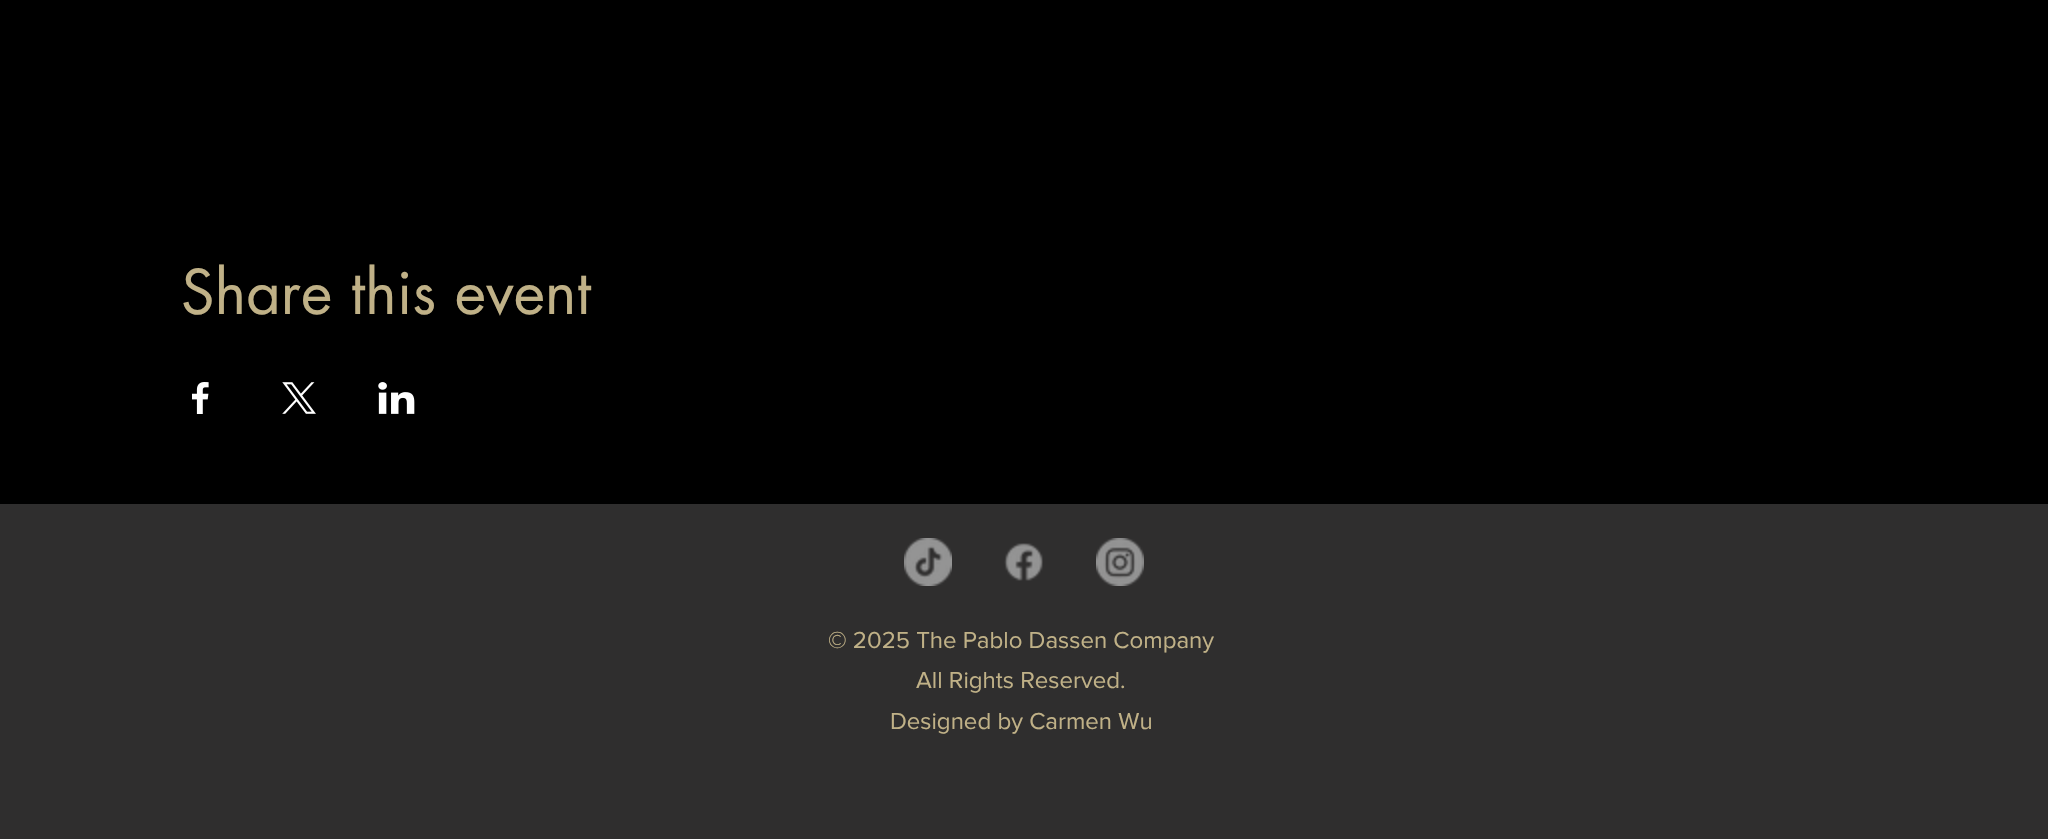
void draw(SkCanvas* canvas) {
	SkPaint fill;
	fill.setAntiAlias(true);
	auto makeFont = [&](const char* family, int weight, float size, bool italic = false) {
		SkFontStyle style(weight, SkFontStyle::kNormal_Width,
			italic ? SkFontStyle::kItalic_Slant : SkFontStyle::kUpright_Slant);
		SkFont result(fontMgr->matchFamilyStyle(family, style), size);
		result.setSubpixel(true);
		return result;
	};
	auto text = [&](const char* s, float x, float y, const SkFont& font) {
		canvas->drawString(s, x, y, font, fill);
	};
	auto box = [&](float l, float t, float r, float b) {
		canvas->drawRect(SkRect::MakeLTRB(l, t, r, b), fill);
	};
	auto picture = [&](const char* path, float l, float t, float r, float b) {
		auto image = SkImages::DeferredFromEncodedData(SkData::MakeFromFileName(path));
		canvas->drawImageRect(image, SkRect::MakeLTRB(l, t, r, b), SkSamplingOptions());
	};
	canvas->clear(0xFF000000);
	picture("image0.png", 192, 382, 209, 414);
	picture("image1.png", 282, 382, 316, 414);
	picture("image2.png", 378, 382, 415, 414);
	fill.setColor(0xFF2F2E2E);
	box(0, 504, 2048, 839);
	picture("image3.png", 904, 538, 952, 586);
	picture("image4.png", 1004, 543, 1043, 581);
	picture("image5.png", 1096, 538, 1144, 586);
	auto font1 = makeFont("futura", 400, 60);
	fill.setColor(0xFFC0B187);
	text("Share this event", 181, 314, font1);
	auto font2 = makeFont("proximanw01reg", 400, 24);
	text("© 2025 The Pablo Dassen Company", 828, 648, font2);
	text("All Rights Reserved.", 916, 688, font2);
	text("Designed by Carmen Wu", 890, 729, font2);
}
